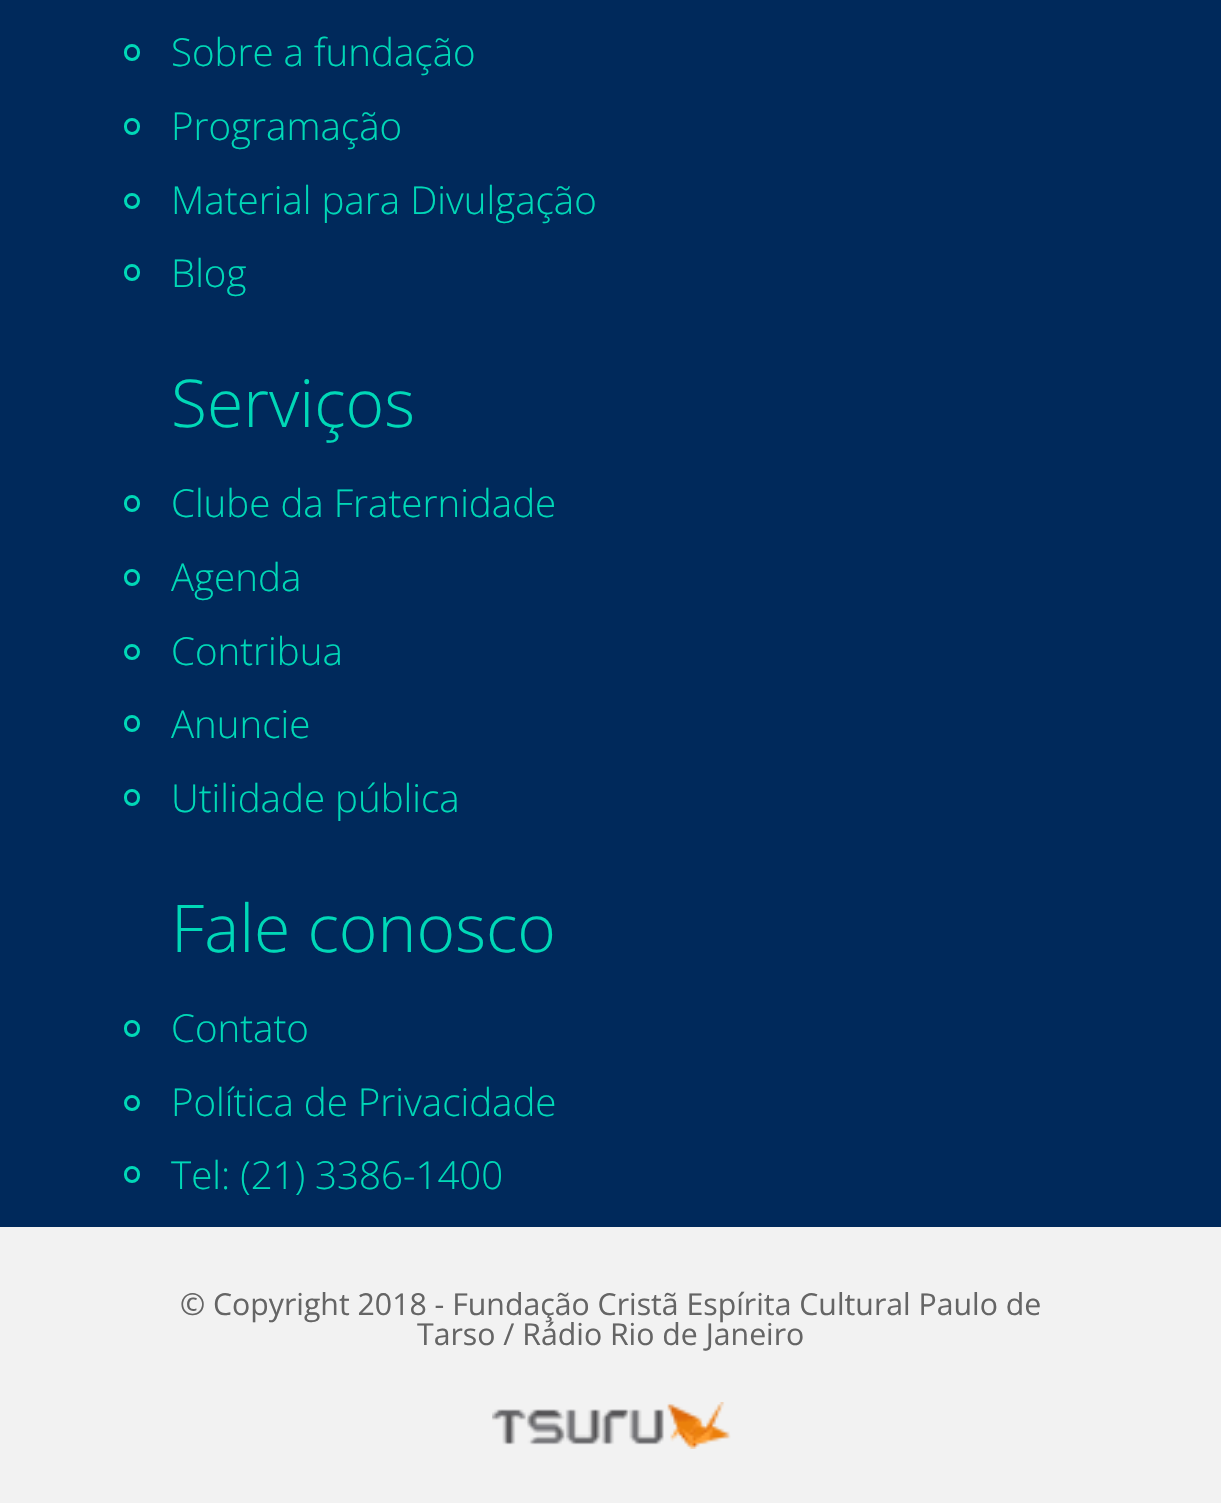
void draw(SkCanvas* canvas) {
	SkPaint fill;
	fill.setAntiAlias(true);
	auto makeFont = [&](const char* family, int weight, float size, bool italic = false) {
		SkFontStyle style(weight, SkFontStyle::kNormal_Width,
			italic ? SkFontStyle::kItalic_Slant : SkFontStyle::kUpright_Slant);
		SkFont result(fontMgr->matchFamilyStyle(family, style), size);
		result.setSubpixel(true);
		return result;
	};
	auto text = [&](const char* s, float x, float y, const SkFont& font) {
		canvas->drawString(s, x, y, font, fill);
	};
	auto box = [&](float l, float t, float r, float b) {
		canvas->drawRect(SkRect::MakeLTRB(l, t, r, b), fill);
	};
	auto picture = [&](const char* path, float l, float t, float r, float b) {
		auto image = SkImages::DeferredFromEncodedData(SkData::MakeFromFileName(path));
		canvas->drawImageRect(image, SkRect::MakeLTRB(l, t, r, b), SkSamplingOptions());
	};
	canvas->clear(0xFFF2F2F2);
	fill.setColor(0xFF00295B);
	box(0, 0, 1221, 1227);
	fill.setStyle(SkPaint::kStroke_Style);
	fill.setStrokeWidth(3);
	fill.setColor(0xFF00D8B7);
	canvas->drawRoundRect(SkRect::MakeLTRB(125.5f, 45.5f, 138.5f, 59.5f), 6.5f, 6.5f, fill);
	canvas->drawRoundRect(SkRect::MakeLTRB(125.5f, 119.5f, 138.5f, 133.5f), 6.5f, 6.5f, fill);
	canvas->drawCircle(132, 201, 6.5f, fill);
	canvas->drawRoundRect(SkRect::MakeLTRB(125.5f, 265.5f, 138.5f, 279.5f), 6.5f, 6.5f, fill);
	canvas->drawRoundRect(SkRect::MakeLTRB(125.5f, 496.5f, 138.5f, 510.5f), 6.5f, 6.5f, fill);
	canvas->drawRoundRect(SkRect::MakeLTRB(125.5f, 570.5f, 138.5f, 584.5f), 6.5f, 6.5f, fill);
	canvas->drawCircle(132, 652, 6.5f, fill);
	canvas->drawRoundRect(SkRect::MakeLTRB(125.5f, 716.5f, 138.5f, 730.5f), 6.5f, 6.5f, fill);
	canvas->drawRoundRect(SkRect::MakeLTRB(125.5f, 790.5f, 138.5f, 804.5f), 6.5f, 6.5f, fill);
	canvas->drawRoundRect(SkRect::MakeLTRB(125.5f, 1021.5f, 138.5f, 1035.5f), 6.5f, 6.5f, fill);
	canvas->drawCircle(132, 1103, 6.5f, fill);
	canvas->drawRoundRect(SkRect::MakeLTRB(125.5f, 1167.5f, 138.5f, 1181.5f), 6.5f, 6.5f, fill);
	picture("image0.png", 492, 1402, 731, 1449);
	auto font1 = makeFont("Open Sans", 300, 38.5f);
	fill.setStyle(SkPaint::kFill_Style);
	text("Sobre a fundação", 171, 66, font1);
	text("Programação", 171, 140, font1);
	text("Material para Divulgação", 171, 214, font1);
	text("Blog", 171, 287, font1);
	auto font2 = makeFont("Open Sans", 300, 66);
	text("Serviços", 171, 427, font2);
	text("Clube da Fraternidade", 171, 517, font1);
	text("Agenda", 171, 591, font1);
	text("Contribua", 171, 665, font1);
	text("Anuncie", 171, 738, font1);
	text("Utilidade pública", 171, 812, font1);
	text("Fale conosco", 171, 952, font2);
	text("Contato", 171, 1042, font1);
	text("Política de Privacidade", 171, 1116, font1);
	text("Tel: (21) 3386-1400", 171, 1189, font1);
	auto font3 = makeFont("Open Sans", 400, 30.25f);
	fill.setColor(0xFF656565);
	text("© Copyright 2018 - Fundação Cristã Espírita Cultural Paulo de", 180, 1315, font3);
	text("Tarso / Rádio Rio de Janeiro", 417, 1345, font3);
}
